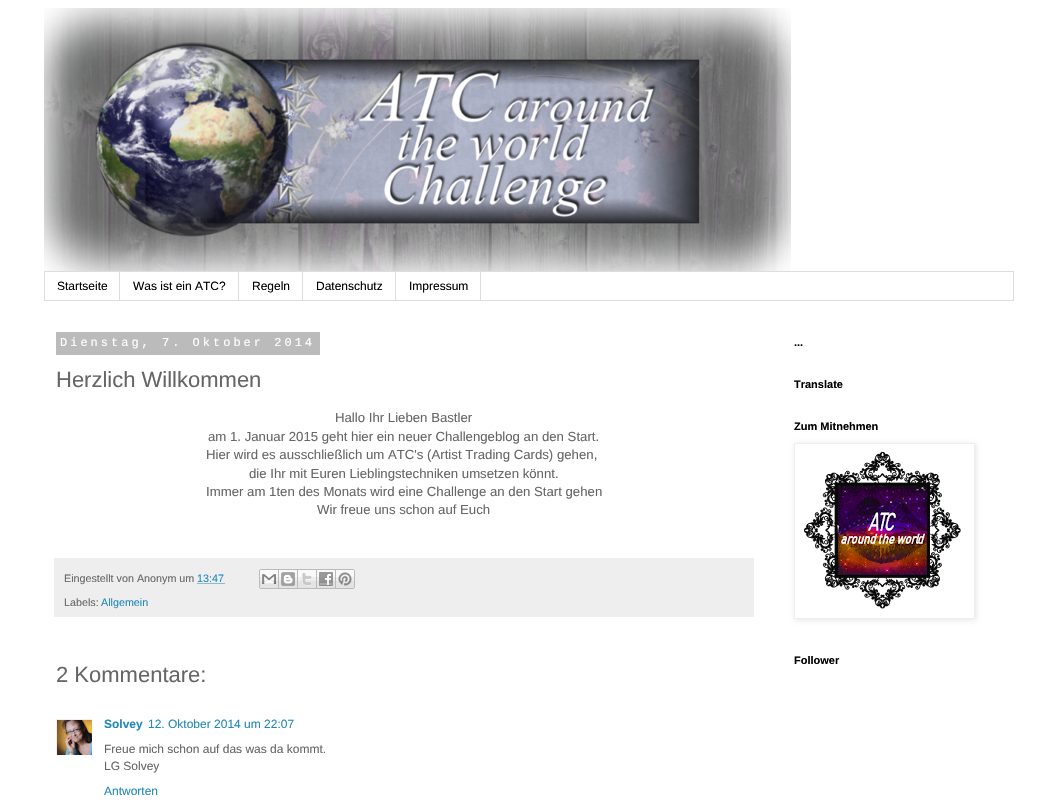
void draw(SkCanvas* canvas) {
	SkPaint fill;
	fill.setAntiAlias(true);
	auto makeFont = [&](const char* family, int weight, float size, bool italic = false) {
		SkFontStyle style(weight, SkFontStyle::kNormal_Width,
			italic ? SkFontStyle::kItalic_Slant : SkFontStyle::kUpright_Slant);
		SkFont result(fontMgr->matchFamilyStyle(family, style), size);
		result.setSubpixel(true);
		return result;
	};
	auto text = [&](const char* s, float x, float y, const SkFont& font) {
		canvas->drawString(s, x, y, font, fill);
	};
	auto spacedText = [&](const char* s, float x, float y, const SkFont& font, const SkPaint& ink, float letter, float word) {
		std::vector<SkGlyphID> glyphs(font.countText(s, strlen(s), SkTextEncoding::kUTF8));
		std::vector<float> xs(glyphs.size());
		font.textToGlyphs(s, strlen(s), SkTextEncoding::kUTF8, glyphs);
		font.getXPos(glyphs, xs, x);
		float extra = 0;
		for (size_t i = 0; i < glyphs.size(); i++) {
			xs[i] += extra;
			extra += letter + word * (glyphs[i] == font.unicharToGlyph(' '));
		}
		canvas->drawTextBlob(SkTextBlob::MakeFromPosHGlyphs(glyphs, xs, y, font), 0, 0, ink);
	};
	auto box = [&](float l, float t, float r, float b) {
		canvas->drawRect(SkRect::MakeLTRB(l, t, r, b), fill);
	};
	auto picture = [&](const char* path, float l, float t, float r, float b) {
		auto image = SkImages::DeferredFromEncodedData(SkData::MakeFromFileName(path));
		canvas->drawImageRect(image, SkRect::MakeLTRB(l, t, r, b), SkSamplingOptions());
	};
	canvas->clear(0xFFFFFFFF);
	picture("image0.png", 44, 8, 791, 271);
	fill.setStyle(SkPaint::kStroke_Style);
	fill.setStrokeWidth(1);
	fill.setColor(0xFFDDDDDD);
	canvas->drawRect(SkRect::MakeLTRB(44.5f, 271.5f, 1013.5f, 300.5f), fill);
	fill.setStyle(SkPaint::kFill_Style);
	box(119, 272, 120, 300);
	box(238, 272, 239, 300);
	box(302, 272, 303, 300);
	box(395, 272, 396, 300);
	box(480, 272, 481, 300);
	fill.setColor(0xFFBBBBBB);
	box(56, 332, 320, 355);
	fill.setColor(0xFFEEEEEE);
	box(54, 558, 754, 617);
	fill.setStyle(SkPaint::kStroke_Style);
	fill.setColor(0xFF2288BB);
	fill.setPathEffect(SkDashPathEffect::Make({{1, 1}}, 0));
	canvas->drawPath(SkPathBuilder().moveTo(197.5f, 583.5f).lineTo(224.5f, 583.5f).detach(), fill);
	fill.setPathEffect(nullptr);
	picture("image1.png", 259, 569, 279, 589);
	picture("image2.png", 279, 569, 298, 589);
	picture("image3.png", 298, 569, 317, 589);
	picture("image4.png", 317, 569, 336, 589);
	picture("image5.png", 336, 569, 355, 589);
	canvas->save();
	canvas->clipRect(SkRect::MakeLTRB(56, 719, 92, 755));
	fill.setColor(0xFFEEEEEE);
	canvas->drawRect(SkRect::MakeLTRB(56.5f, 719.5f, 93.5f, 756.5f), fill);
	canvas->restore();
	picture("image6.png", 57, 720, 92, 755);
	canvas->save();
	canvas->clipPath(SkPathBuilder(SkPathFillType::kEvenOdd).moveTo(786, 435).lineTo(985, 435).lineTo(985, 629).lineTo(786, 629).close().moveTo(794, 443).lineTo(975, 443).lineTo(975, 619).lineTo(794, 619).close().detach(), true);
	fill.setStyle(SkPaint::kFill_Style);
	fill.setColor(0x1A000000);
	fill.setMaskFilter(SkMaskFilter::MakeBlur(kNormal_SkBlurStyle, 2.5f));
	canvas->drawRect(SkRect::MakeLTRB(795, 444, 976, 620), fill);
	fill.setMaskFilter(nullptr);
	canvas->restore();
	fill.setStyle(SkPaint::kStroke_Style);
	fill.setColor(0xFFEEEEEE);
	canvas->drawRect(SkRect::MakeLTRB(794.5f, 443.5f, 974.5f, 618.5f), fill);
	picture("image7.png", 804, 451, 961, 609);
	auto font1 = makeFont("Liberation Sans", 400, 12);
	fill.setStyle(SkPaint::kFill_Style);
	fill.setColor(0xFF000000);
	text("Startseite", 57, 290, font1);
	text("Was ist ein ATC?", 133, 290, font1);
	text("Regeln", 252, 290, font1);
	text("Datenschutz", 316, 290, font1);
	text("Impressum", 409, 290, font1);
	auto font2 = makeFont("Liberation Mono", 400, 12);
	fill.setColor(0xFFFFFFFF);
	spacedText("Dienstag, 7. Oktober 2014", 60, 346, font2, fill, 3, 0);
	auto font3 = makeFont("Liberation Sans", 400, 22);
	fill.setColor(0xFF666666);
	text("Herzlich Willkommen", 56, 387, font3);
	auto font4 = makeFont("Liberation Sans", 400, 13.2f);
	text("Hallo Ihr Lieben Bastler", 335, 422, font4);
	text("am 1. Januar 2015 geht hier ein neuer Challengeblog an den Start.", 208, 441, font4);
	text("Hier wird es ausschließlich um ATC's (Artist Trading Cards) gehen,", 206, 459, font4);
	text("die Ihr mit Euren Lieblingstechniken umsetzen könnt.", 249, 478, font4);
	text("Immer am 1ten des Monats wird eine Challenge an den Start gehen", 206, 496, font4);
	text("Wir freue uns schon auf Euch", 317, 514, font4);
	auto font5 = makeFont("Liberation Sans", 400, 10.75f);
	text("Eingestellt von Anonym um", 64, 582, font5);
	fill.setColor(0xFF2288BB);
	text("13:47", 197, 582, font5);
	fill.setColor(0xFF666666);
	text("Labels:", 64, 606, font5);
	fill.setColor(0xFF2288BB);
	text("Allgemein", 101, 606, font5);
	fill.setColor(0xFF666666);
	text("2 Kommentare:", 56, 682, font3);
	auto font6 = makeFont("Liberation Sans", 700, 12);
	fill.setColor(0xFF2288BB);
	text("Solvey", 104, 728, font6);
	text("12. Oktober 2014 um 22:07", 148, 728, font1);
	fill.setColor(0xFF666666);
	text("Freue mich schon auf das was da kommt.", 104, 753, font1);
	text("LG Solvey", 104, 770, font1);
	fill.setColor(0xFF2288BB);
	text("Antworten", 104, 795, font1);
	auto font7 = makeFont("Liberation Sans", 700, 11);
	fill.setColor(0xFF000000);
	text("...", 794, 346, font7);
	text("Translate", 794, 388, font7);
	text("Zum Mitnehmen", 794, 430, font7);
	text("Follower", 794, 664, font7);
}
